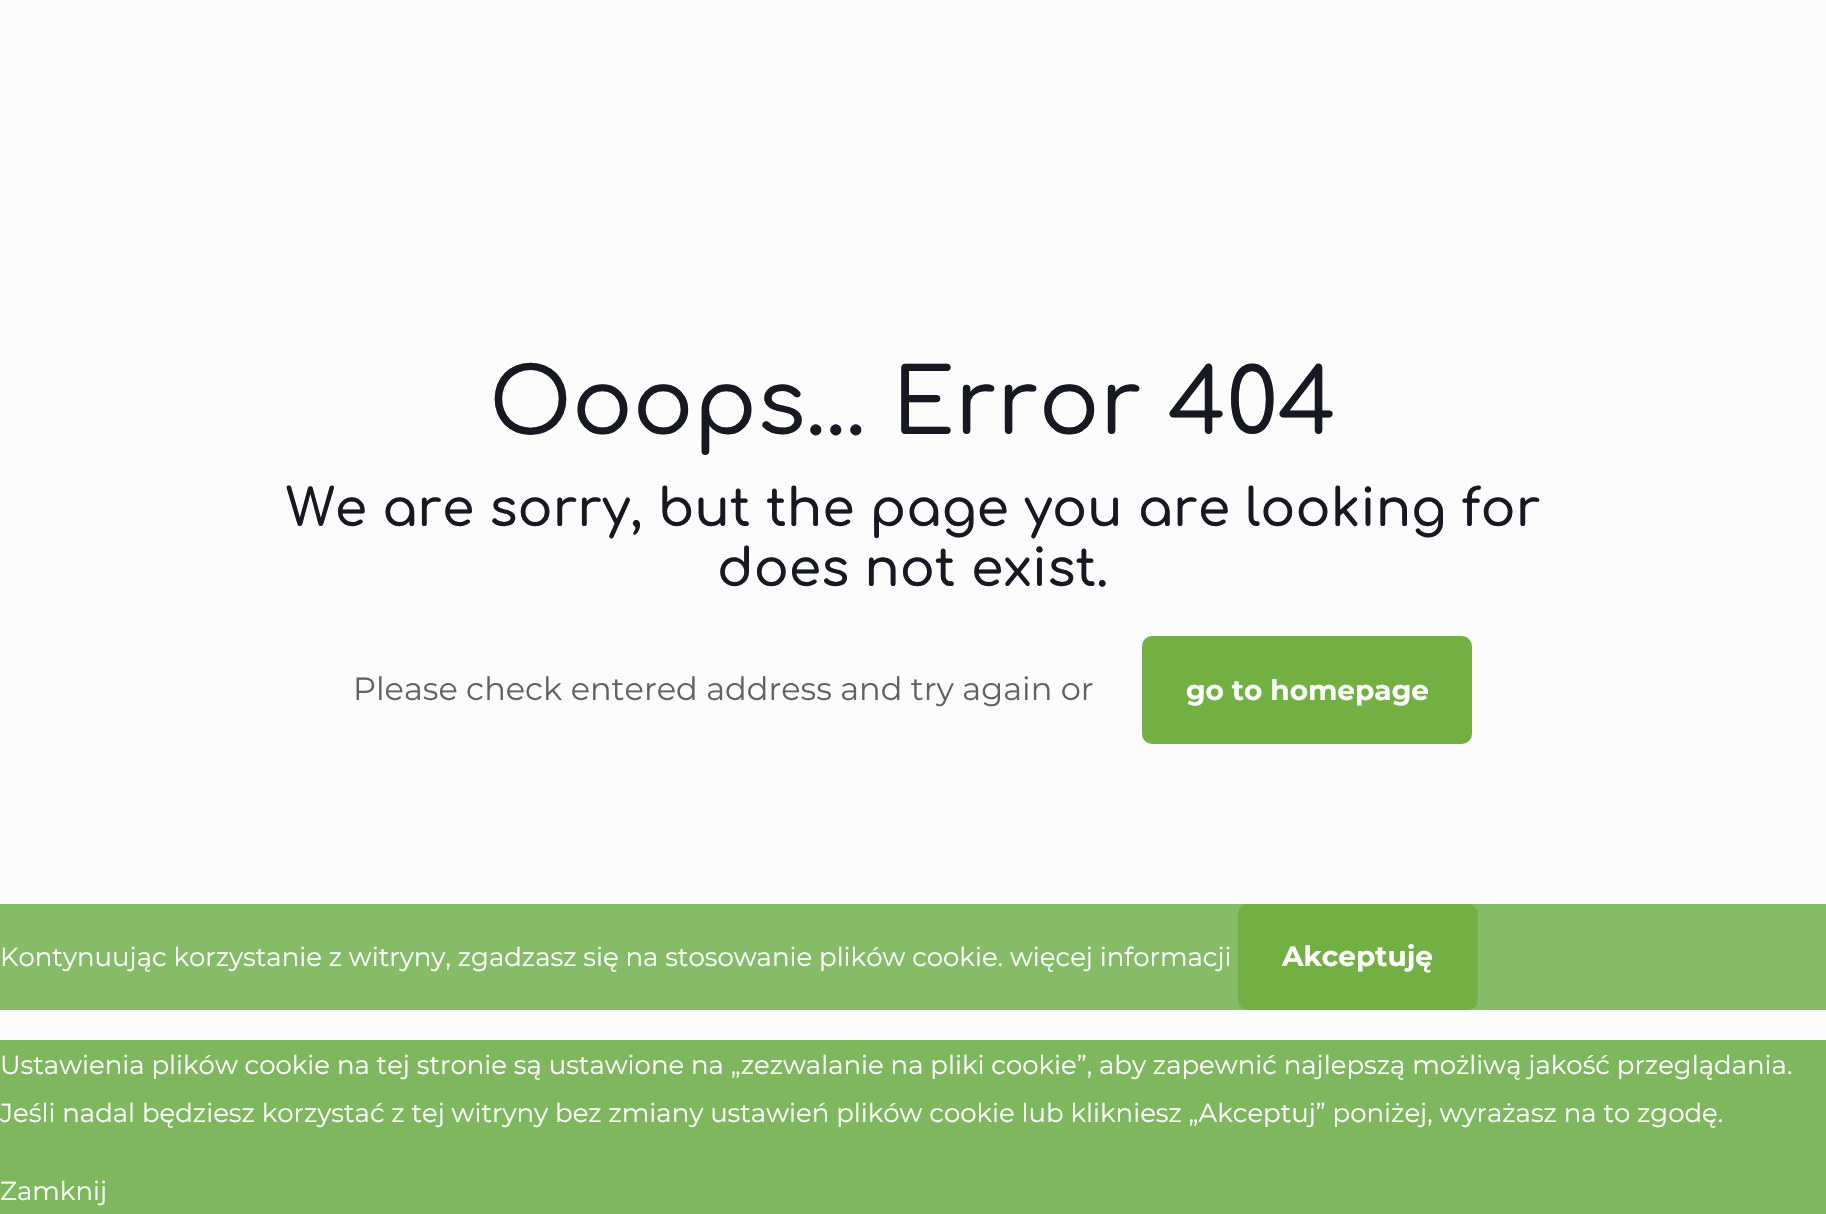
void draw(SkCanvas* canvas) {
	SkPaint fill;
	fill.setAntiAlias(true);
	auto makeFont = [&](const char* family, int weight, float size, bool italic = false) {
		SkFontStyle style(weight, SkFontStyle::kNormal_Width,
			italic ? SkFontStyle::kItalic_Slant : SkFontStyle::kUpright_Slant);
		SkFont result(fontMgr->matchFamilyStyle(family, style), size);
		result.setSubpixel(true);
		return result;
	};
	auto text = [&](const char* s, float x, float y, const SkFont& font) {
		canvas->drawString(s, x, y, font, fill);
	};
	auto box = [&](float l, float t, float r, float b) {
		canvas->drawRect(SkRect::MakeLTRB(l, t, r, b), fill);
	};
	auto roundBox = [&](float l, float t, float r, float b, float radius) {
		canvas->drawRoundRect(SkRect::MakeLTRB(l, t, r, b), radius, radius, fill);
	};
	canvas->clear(0xFFFCFCFC);
	fill.setColor(0xFF73B043);
	roundBox(1142, 636, 1472, 744, 10);
	fill.setColor(0xFF86BB68);
	box(0, 904, 1826, 1010);
	fill.setColor(0xFF73B043);
	roundBox(1238, 904, 1478, 1010, 10);
	fill.setColor(0xFF7FB75F);
	box(0, 1040, 1826, 1214);
	auto font1 = makeFont("Comfortaa", 500, 90);
	fill.setColor(0xFF161922);
	text("Ooops... Error 404", 489, 434, font1);
	auto font2 = makeFont("Comfortaa", 600, 52);
	text("We are sorry, but the page you are looking for", 286, 526, font2);
	text("does not exist.", 717, 586, font2);
	auto font3 = makeFont("Montserrat", 400, 32);
	fill.setColor(0xFF626262);
	text("Please check entered address and try again or", 353, 700, font3);
	auto font4 = makeFont("Montserrat", 700, 28);
	fill.setColor(0xFFFFFFFF);
	text("go to homepage", 1186, 700, font4);
	auto font5 = makeFont("Montserrat", 400, 26);
	text("Kontynuując korzystanie z witryny, zgadzasz się na stosowanie plików cookie. więcej informacji", 0, 966, font5);
	text("Akceptuję", 1282, 966, font4);
	text("Ustawienia plików cookie na tej stronie są ustawione na „zezwalanie na pliki cookie”, aby zapewnić najlepszą możliwą jakość przeglądania.", 0, 1074, font5);
	text("Jeśli nadal będziesz korzystać z tej witryny bez zmiany ustawień plików cookie lub klikniesz „Akceptuj” poniżej, wyrażasz na to zgodę.", 0, 1122, font5);
	text("Zamknij", 0, 1200, font5);
}
